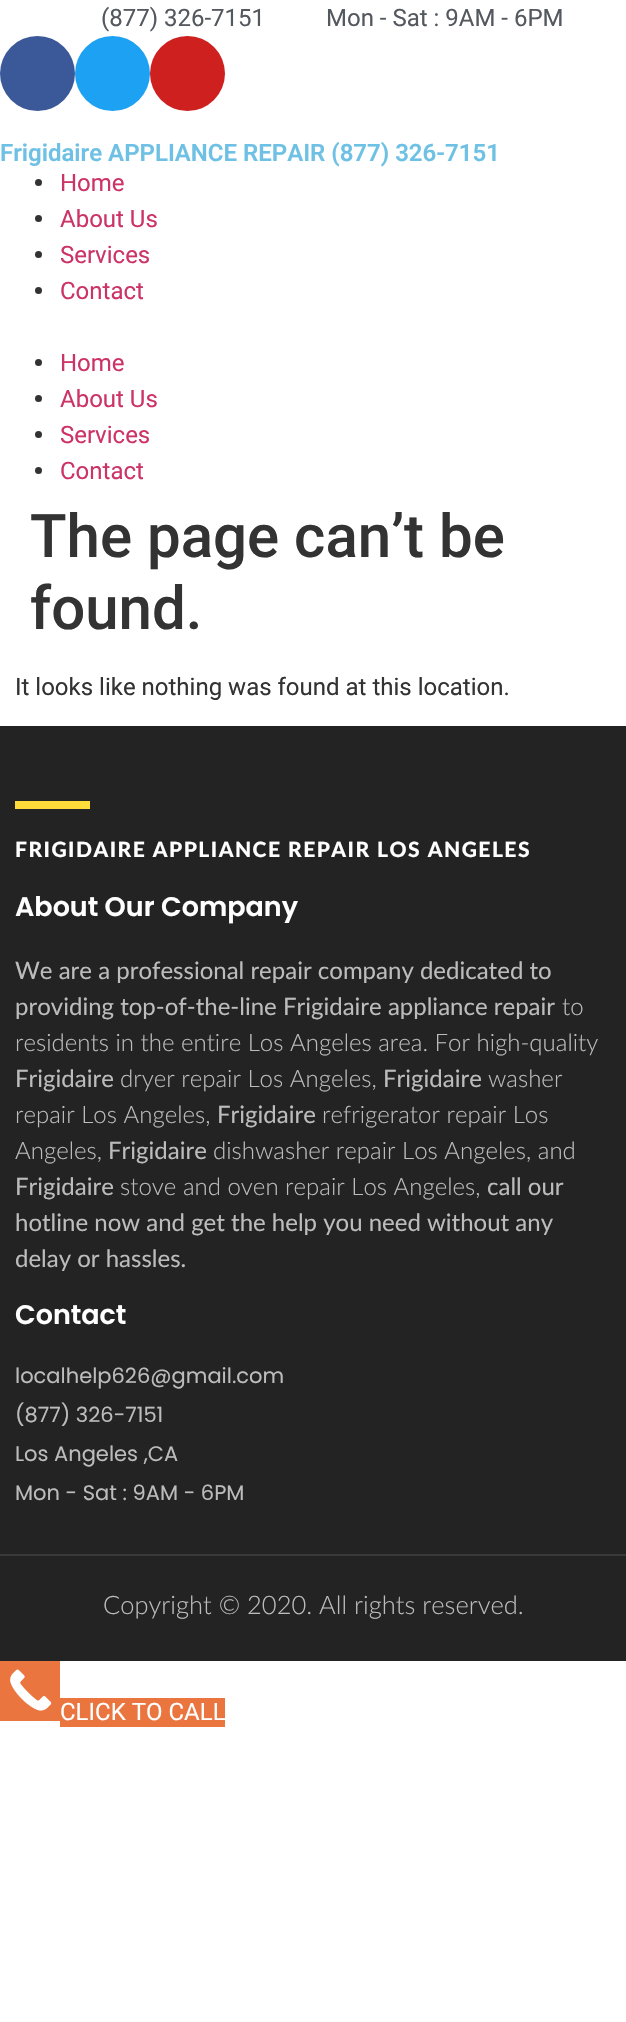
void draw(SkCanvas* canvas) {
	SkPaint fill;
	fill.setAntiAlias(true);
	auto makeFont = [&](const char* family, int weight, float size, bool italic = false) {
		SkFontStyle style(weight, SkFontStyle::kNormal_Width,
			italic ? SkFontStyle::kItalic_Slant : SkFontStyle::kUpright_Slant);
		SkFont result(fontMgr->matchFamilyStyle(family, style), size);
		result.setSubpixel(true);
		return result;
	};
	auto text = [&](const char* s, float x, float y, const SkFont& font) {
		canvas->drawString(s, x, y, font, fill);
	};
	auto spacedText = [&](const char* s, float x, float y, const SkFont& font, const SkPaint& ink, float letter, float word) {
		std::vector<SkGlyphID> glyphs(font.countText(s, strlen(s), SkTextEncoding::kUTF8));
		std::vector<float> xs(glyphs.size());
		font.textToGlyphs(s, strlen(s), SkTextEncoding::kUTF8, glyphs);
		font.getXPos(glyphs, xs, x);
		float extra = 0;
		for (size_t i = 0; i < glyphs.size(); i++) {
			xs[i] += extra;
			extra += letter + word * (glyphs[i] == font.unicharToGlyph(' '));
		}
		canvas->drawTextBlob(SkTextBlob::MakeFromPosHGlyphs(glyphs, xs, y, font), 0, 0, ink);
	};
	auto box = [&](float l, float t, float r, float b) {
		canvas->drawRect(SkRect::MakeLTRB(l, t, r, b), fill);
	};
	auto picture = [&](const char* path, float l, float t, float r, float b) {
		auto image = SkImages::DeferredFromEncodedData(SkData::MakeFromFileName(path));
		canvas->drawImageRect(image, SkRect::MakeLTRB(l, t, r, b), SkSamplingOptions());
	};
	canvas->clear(0xFFFFFFFF);
	fill.setColor(0xFF3B5998);
	canvas->drawCircle(37.5f, 73.5f, 37.5f, fill);
	fill.setColor(0xFF1DA1F2);
	canvas->drawCircle(112.5f, 73.5f, 37.5f, fill);
	fill.setColor(0xFFCD201F);
	canvas->drawCircle(187.5f, 73.5f, 37.5f, fill);
	fill.setColor(0xFF333333);
	canvas->drawCircle(38.5f, 182.5f, 3.5f, fill);
	canvas->drawCircle(38.5f, 218.5f, 3.5f, fill);
	canvas->drawCircle(38.5f, 254.5f, 3.5f, fill);
	canvas->drawCircle(38.5f, 290.5f, 3.5f, fill);
	canvas->drawCircle(38.5f, 362.5f, 3.5f, fill);
	canvas->drawCircle(38.5f, 398.5f, 3.5f, fill);
	canvas->drawCircle(38.5f, 434.5f, 3.5f, fill);
	canvas->drawCircle(38.5f, 470.5f, 3.5f, fill);
	fill.setColor(0xFF232323);
	box(0, 726, 626, 1554);
	fill.setColor(0xFFFFDC39);
	box(15, 801, 90, 809);
	fill.setColor(0xFF232323);
	box(0, 1556, 626, 1661);
	fill.setColor(0xFF393939);
	box(0, 1554, 626, 1556);
	fill.setColor(0xFFEA753F);
	box(0, 1661, 60, 1721);
	picture("image0.png", 10, 1669, 52, 1711);
	box(60, 1698, 225, 1727);
	auto font1 = makeFont("Roboto", 400, 24);
	fill.setColor(0xFF54595F);
	text("(877) 326-7151", 101, 26, font1);
	text("Mon - Sat : 9AM - 6PM", 326, 26, font1);
	auto font2 = makeFont("Roboto", 600, 24);
	fill.setColor(0xFF6EC1E4);
	text("Frigidaire APPLIANCE REPAIR (877) 326-7151", 0, 161, font2);
	fill.setColor(0xFFCC3366);
	text("Home", 60, 191, font1);
	text("About Us", 60, 227, font1);
	text("Services", 60, 263, font1);
	text("Contact", 60, 299, font1);
	text("Home", 60, 371, font1);
	text("About Us", 60, 407, font1);
	text("Services", 60, 443, font1);
	text("Contact", 60, 479, font1);
	auto font3 = makeFont("Roboto", 500, 60);
	fill.setColor(0xFF333333);
	text("The page can’t be", 30, 557, font3);
	text("found.", 30, 629, font3);
	text("It looks like nothing was found at this location.", 15, 695, font1);
	auto font4 = makeFont("Lato", 900, 21);
	fill.setColor(0xFFFFFFFF);
	spacedText("FRIGIDAIRE APPLIANCE REPAIR LOS ANGELES", 15, 857, font4, fill, 1.5f, 0);
	auto font5 = makeFont("Poppins", 600, 27);
	text("About Our Company", 15, 916, font5);
	auto font6 = makeFont("Lato", 400, 24);
	fill.setColor(0xFFBCBCBC);
	text("We are a professional repair company dedicated to", 15, 979, font6);
	text("providing top-of-the-line Frigidaire appliance repair", 15, 1015, font6);
	auto font7 = makeFont("Lato", 300, 24);
	text("to", 562, 1015, font7);
	text("residents in the entire Los Angeles area. For high-quality", 15, 1051, font7);
	text("Frigidaire", 15, 1087, font6);
	text("dryer repair Los Angeles,", 120, 1087, font7);
	text("Frigidaire", 383, 1087, font6);
	text("washer", 488, 1087, font7);
	text("repair Los Angeles,", 15, 1123, font7);
	text("Frigidaire", 217, 1123, font6);
	text("refrigerator repair Los", 322, 1123, font7);
	text("Angeles,", 15, 1159, font7);
	text("Frigidaire", 108, 1159, font6);
	text("dishwasher repair Los Angeles, and", 213, 1159, font7);
	text("Frigidaire", 15, 1195, font6);
	text("stove and oven repair Los Angeles,", 120, 1195, font7);
	text("call our", 487, 1195, font6);
	text("hotline now and get the help you need without any", 15, 1231, font6);
	text("delay or hassles.", 15, 1267, font6);
	fill.setColor(0xFFFFFFFF);
	text("Contact", 15, 1324, font5);
	auto font8 = makeFont("Poppins", 400, 21);
	fill.setColor(0xFFBCBCBC);
	text("localhelp626@gmail.com", 15, 1383, font8);
	text("(877) 326-7151", 15, 1422, font8);
	text("Los Angeles ,CA", 15, 1461, font8);
	text("Mon - Sat : 9AM - 6PM", 15, 1500, font8);
	auto font9 = makeFont("Lato", 300, 25.5f);
	text("Copyright © 2020. All rights reserved.", 103, 1614, font9);
	fill.setColor(0xFFFFFFFF);
	text("CLICK TO CALL", 60, 1720, font1);
}
